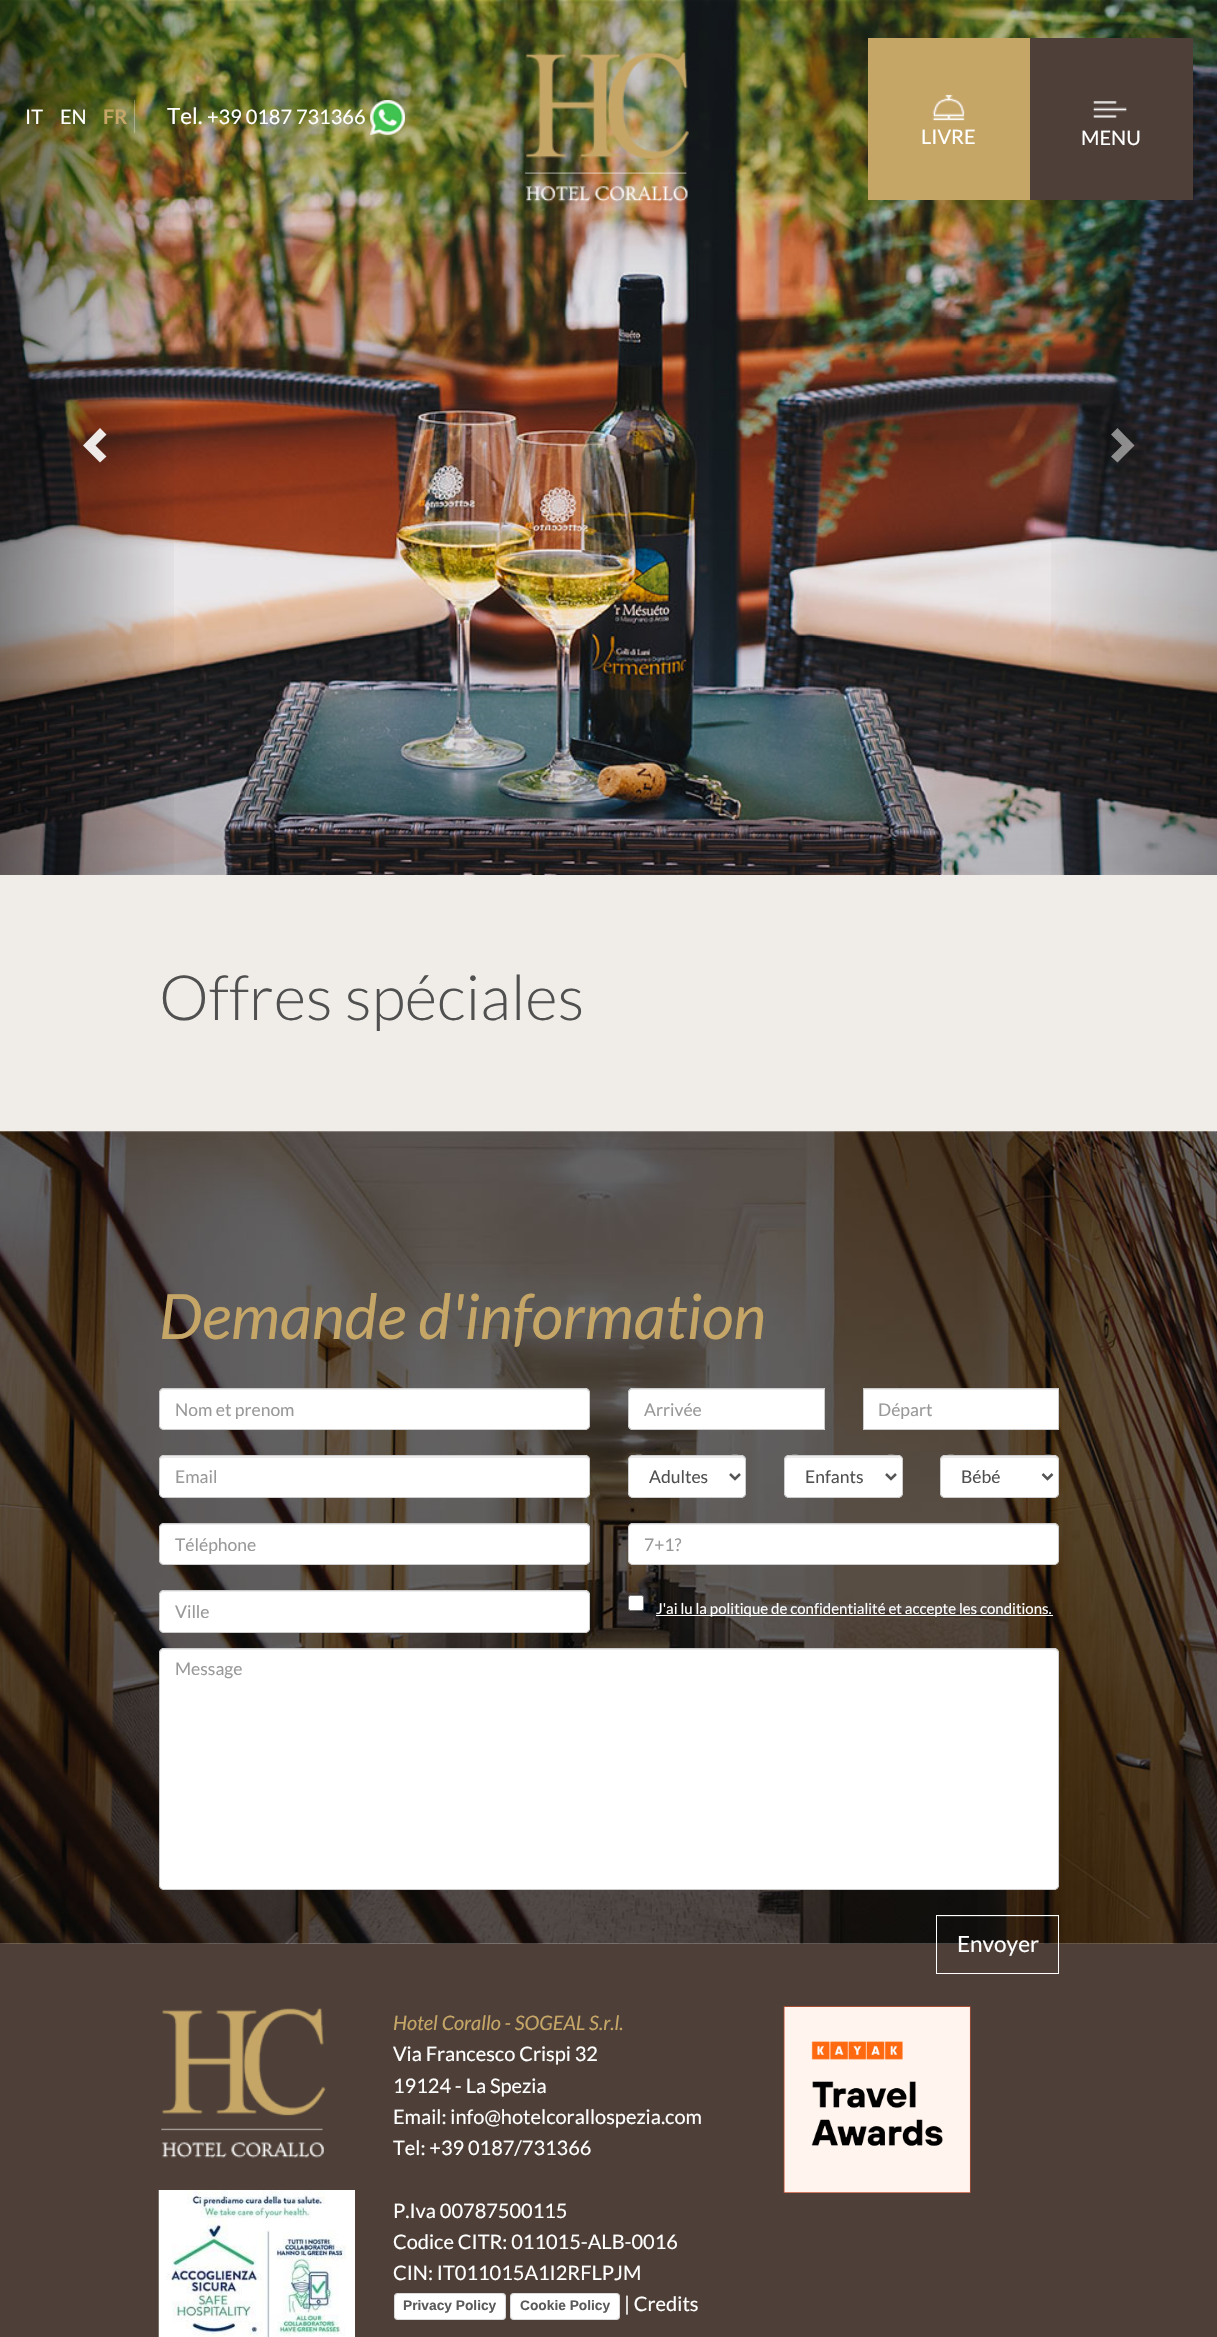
void draw(SkCanvas* canvas) {
	SkPaint fill;
	fill.setAntiAlias(true);
	auto makeFont = [&](const char* family, int weight, float size, bool italic = false) {
		SkFontStyle style(weight, SkFontStyle::kNormal_Width,
			italic ? SkFontStyle::kItalic_Slant : SkFontStyle::kUpright_Slant);
		SkFont result(fontMgr->matchFamilyStyle(family, style), size);
		result.setSubpixel(true);
		return result;
	};
	auto text = [&](const char* s, float x, float y, const SkFont& font) {
		canvas->drawString(s, x, y, font, fill);
	};
	auto box = [&](float l, float t, float r, float b) {
		canvas->drawRect(SkRect::MakeLTRB(l, t, r, b), fill);
	};
	auto roundBox = [&](float l, float t, float r, float b, float radius) {
		canvas->drawRoundRect(SkRect::MakeLTRB(l, t, r, b), radius, radius, fill);
	};
	auto picture = [&](const char* path, float l, float t, float r, float b) {
		auto image = SkImages::DeferredFromEncodedData(SkData::MakeFromFileName(path));
		canvas->drawImageRect(image, SkRect::MakeLTRB(l, t, r, b), SkSamplingOptions());
	};
	canvas->clear(0xFFF0EDE8);
	picture("image0.png", 0, 0, 1217, 875);
	picture("image1.png", 0, 1, 1217, 376);
	{
		const SkColor colors[] = {0x73000000, 0x00000000};
		const float stops[] = {0, 1};
		const SkPoint ends[] = {{0, 438}, {183, 438}};
		fill.setShader(SkGradientShader::MakeLinear(ends, colors, stops, 2, SkTileMode::kClamp));
		fill.setAlpha(255);
	}
	box(0, 0, 174, 875);
	fill.setShader(nullptr);
	fill.setColor(0xE6FFFFFF);
	canvas->drawPath(SkPathBuilder().moveTo(106.5f, 434.5f).lineTo(95.5f, 445.5f).lineTo(106.5f, 456.5f).lineTo(100, 462.5f).lineTo(83, 445.5f).lineTo(100, 428).close().detach(), fill);
	{
		const SkColor colors[] = {0x00000000, 0x40000000};
		const float stops[] = {0, 1};
		const SkPoint ends[] = {{1035, 438}, {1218, 438}};
		fill.setShader(SkGradientShader::MakeLinear(ends, colors, stops, 2, SkTileMode::kClamp));
		fill.setAlpha(255);
	}
	box(1051, 0, 1217, 875);
	fill.setShader(nullptr);
	fill.setColor(0x80FFFFFF);
	canvas->drawPath(SkPathBuilder().moveTo(1134.5f, 445.5f).lineTo(1117.5f, 462.5f).lineTo(1111, 456.5f).lineTo(1122, 445.5f).lineTo(1111, 434.5f).lineTo(1117.5f, 428).close().detach(), fill);
	picture("image2.png", 524, 52, 689, 202);
	picture("image3.png", 0, 679, 1217, 875);
	fill.setColor(0x4DFFFFFF);
	box(134, 100, 135, 133);
	picture("image4.png", 370, 100, 405, 135);
	fill.setColor(0xFFC5A667);
	box(868, 38, 1030, 200);
	picture("image5.png", 932, 94, 965, 121);
	fill.setColor(0xFF4E4038);
	box(1030, 38, 1193, 200);
	picture("image6.png", 1093, 101, 1127, 118);
	picture("image7.png", 0, 1131, 1217, 1944);
	fill.setColor(0xFFFFFFFF);
	roundBox(159, 1388, 590, 1430, 5);
	fill.setColor(0xFFECECEC);
	canvas->drawPath(SkPathBuilder().moveTo(164, 1390).lineTo(585, 1390).cubicTo(587, 1390, 589, 1392, 589, 1394).cubicTo(589, 1391, 588, 1389, 585, 1389).lineTo(164, 1389).cubicTo(163, 1389, 161, 1390, 161, 1391).lineTo(160, 1394).cubicTo(160, 1392, 162, 1390, 164, 1390).close().detach(), fill);
	fill.setStyle(SkPaint::kStroke_Style);
	fill.setStrokeWidth(1);
	fill.setColor(0xFFCCCCCC);
	canvas->drawRoundRect(SkRect::MakeLTRB(159.5f, 1388.5f, 589.5f, 1429.5f), 4.5f, 4.5f, fill);
	fill.setStyle(SkPaint::kFill_Style);
	fill.setColor(0xFFFFFFFF);
	roundBox(159, 1455, 590, 1498, 5);
	fill.setColor(0xFFECECEC);
	canvas->drawPath(SkPathBuilder().moveTo(164, 1458).lineTo(585, 1458).cubicTo(587, 1458, 589, 1459, 589, 1461).cubicTo(589, 1458, 588, 1456, 585, 1456).lineTo(164, 1456).cubicTo(163, 1456, 161, 1457, 161, 1458).lineTo(160, 1461).cubicTo(160, 1459, 162, 1458, 164, 1458).close().detach(), fill);
	fill.setStyle(SkPaint::kStroke_Style);
	fill.setColor(0xFFCCCCCC);
	canvas->drawRoundRect(SkRect::MakeLTRB(159.5f, 1455.5f, 589.5f, 1497.5f), 4.5f, 4.5f, fill);
	fill.setStyle(SkPaint::kFill_Style);
	fill.setColor(0xFFFFFFFF);
	roundBox(159, 1523, 590, 1565, 5);
	fill.setColor(0xFFECECEC);
	canvas->drawPath(SkPathBuilder().moveTo(164, 1525).lineTo(585, 1525).cubicTo(587, 1525, 589, 1527, 589, 1529).cubicTo(589, 1526, 588, 1524, 585, 1524).lineTo(164, 1524).cubicTo(163, 1524, 161, 1525, 161, 1526).lineTo(160, 1529).cubicTo(160, 1527, 162, 1525, 164, 1525).close().detach(), fill);
	fill.setStyle(SkPaint::kStroke_Style);
	fill.setColor(0xFFCCCCCC);
	canvas->drawRoundRect(SkRect::MakeLTRB(159.5f, 1523.5f, 589.5f, 1564.5f), 4.5f, 4.5f, fill);
	fill.setStyle(SkPaint::kFill_Style);
	fill.setColor(0xFFFFFFFF);
	roundBox(159, 1590, 590, 1633, 5);
	fill.setColor(0xFFECECEC);
	canvas->drawPath(SkPathBuilder().moveTo(164, 1592).lineTo(585, 1592).cubicTo(587, 1592, 589, 1594, 589, 1596).cubicTo(589, 1593, 588, 1591, 585, 1591).lineTo(164, 1591).cubicTo(163, 1591, 161, 1592, 161, 1593).lineTo(160, 1596).cubicTo(160, 1594, 162, 1592, 164, 1592).close().detach(), fill);
	fill.setStyle(SkPaint::kStroke_Style);
	fill.setColor(0xFFCCCCCC);
	canvas->drawRoundRect(SkRect::MakeLTRB(159.5f, 1590.5f, 589.5f, 1632.5f), 4.5f, 4.5f, fill);
	fill.setStyle(SkPaint::kFill_Style);
	fill.setColor(0xFFFFFFFF);
	canvas->drawPath(SkPathBuilder().moveTo(633, 1388).lineTo(825, 1388).lineTo(825, 1430).lineTo(633, 1430).cubicTo(630, 1430, 628, 1428, 628, 1425).lineTo(628, 1393).cubicTo(628, 1390, 630, 1388, 633, 1388).close().detach(), fill);
	fill.setColor(0xFFECECEC);
	canvas->drawPath(SkPathBuilder().moveTo(632, 1390).lineTo(824, 1390).lineTo(824, 1389).lineTo(633, 1389).cubicTo(630, 1389, 629, 1391, 629, 1394).cubicTo(629, 1392, 630, 1390, 632, 1390).close().detach(), fill);
	fill.setStyle(SkPaint::kStroke_Style);
	fill.setColor(0xFFCCCCCC);
	canvas->drawPath(SkPathBuilder().moveTo(633, 1388.5f).lineTo(824.5f, 1388.5f).lineTo(824.5f, 1429.5f).lineTo(633, 1429.5f).cubicTo(630.5f, 1429.5f, 628.5f, 1427.5f, 628.5f, 1425).lineTo(628.5f, 1393).cubicTo(628.5f, 1390.5f, 630.5f, 1388.5f, 633, 1388.5f).close().detach(), fill);
	fill.setStyle(SkPaint::kFill_Style);
	fill.setColor(0xFFFFFFFF);
	box(864, 1390, 1058, 1429);
	fill.setColor(0xFFECECEC);
	box(864, 1389, 1058, 1390);
	fill.setStyle(SkPaint::kStroke_Style);
	fill.setColor(0xFFCCCCCC);
	canvas->drawRect(SkRect::MakeLTRB(863.5f, 1388.5f, 1058.5f, 1429.5f), fill);
	fill.setStyle(SkPaint::kFill_Style);
	fill.setColor(0xFFFFFFFF);
	roundBox(628, 1455, 746, 1498, 5);
	fill.setColor(0xFFECECEC);
	canvas->drawPath(SkPathBuilder().moveTo(632, 1458).lineTo(741, 1458).cubicTo(743, 1458, 745, 1459, 745, 1461).cubicTo(745, 1451, 726, 1456, 723, 1456).lineTo(651, 1456).cubicTo(648, 1456, 629, 1451, 629, 1461).cubicTo(629, 1459, 630, 1458, 632, 1458).close().detach(), fill);
	fill.setStyle(SkPaint::kStroke_Style);
	fill.setColor(0xFFCCCCCC);
	canvas->drawRoundRect(SkRect::MakeLTRB(628.5f, 1455.5f, 745.5f, 1497.5f), 4.5f, 4.5f, fill);
	fill.setStrokeWidth(2.5f);
	fill.setColor(0xFF555555);
	canvas->drawPath(SkPathBuilder().moveTo(730, 1474).lineTo(735, 1479).lineTo(740, 1474).detach(), fill);
	fill.setStyle(SkPaint::kFill_Style);
	fill.setColor(0xFFFFFFFF);
	roundBox(784, 1455, 903, 1498, 5);
	fill.setColor(0xFFECECEC);
	canvas->drawPath(SkPathBuilder().moveTo(789, 1458).lineTo(898, 1458).cubicTo(900, 1458, 901, 1459, 901, 1461).cubicTo(901, 1451, 882, 1456, 879, 1456).lineTo(807, 1456).cubicTo(804, 1456, 785, 1451, 785, 1461).cubicTo(785, 1459, 787, 1458, 789, 1458).close().detach(), fill);
	fill.setStyle(SkPaint::kStroke_Style);
	fill.setStrokeWidth(1);
	fill.setColor(0xFFCCCCCC);
	canvas->drawRoundRect(SkRect::MakeLTRB(784.5f, 1455.5f, 902.5f, 1497.5f), 4.5f, 4.5f, fill);
	fill.setStrokeWidth(2.5f);
	fill.setColor(0xFF555555);
	canvas->drawPath(SkPathBuilder().moveTo(886, 1474).lineTo(891, 1479).lineTo(896, 1474).detach(), fill);
	fill.setStyle(SkPaint::kFill_Style);
	fill.setColor(0xFFFFFFFF);
	roundBox(940, 1455, 1059, 1498, 5);
	fill.setColor(0xFFECECEC);
	canvas->drawPath(SkPathBuilder().moveTo(945, 1458).lineTo(1054, 1458).cubicTo(1056, 1458, 1058, 1459, 1058, 1461).cubicTo(1058, 1451, 1039, 1456, 1036, 1456).lineTo(963, 1456).cubicTo(960, 1456, 941, 1451, 941, 1461).cubicTo(941, 1459, 943, 1458, 945, 1458).close().detach(), fill);
	fill.setStyle(SkPaint::kStroke_Style);
	fill.setStrokeWidth(1);
	fill.setColor(0xFFCCCCCC);
	canvas->drawRoundRect(SkRect::MakeLTRB(940.5f, 1455.5f, 1058.5f, 1497.5f), 4.5f, 4.5f, fill);
	fill.setStrokeWidth(2.5f);
	fill.setColor(0xFF555555);
	canvas->drawPath(SkPathBuilder().moveTo(1042.5f, 1474).lineTo(1047.5f, 1479).lineTo(1052.5f, 1474).detach(), fill);
	fill.setStyle(SkPaint::kFill_Style);
	fill.setColor(0xFFFFFFFF);
	roundBox(628, 1523, 1059, 1565, 5);
	fill.setColor(0xFFECECEC);
	canvas->drawPath(SkPathBuilder().moveTo(632, 1525).lineTo(1054, 1525).cubicTo(1056, 1525, 1058, 1527, 1058, 1529).cubicTo(1058, 1526, 1057, 1524, 1054, 1524).lineTo(633, 1524).cubicTo(632, 1524, 630, 1525, 630, 1526).lineTo(629, 1529).cubicTo(629, 1527, 630, 1525, 632, 1525).close().detach(), fill);
	fill.setStyle(SkPaint::kStroke_Style);
	fill.setStrokeWidth(1);
	fill.setColor(0xFFCCCCCC);
	canvas->drawRoundRect(SkRect::MakeLTRB(628.5f, 1523.5f, 1058.5f, 1564.5f), 4.5f, 4.5f, fill);
	fill.setStyle(SkPaint::kFill_Style);
	fill.setColor(0xFFFFFFFF);
	canvas->drawRoundRect(SkRect::MakeLTRB(628.5f, 1595.5f, 643.5f, 1610.5f), 2, 2, fill);
	fill.setStyle(SkPaint::kStroke_Style);
	fill.setColor(0xFF767676);
	canvas->drawRoundRect(SkRect::MakeLTRB(628.5f, 1595.5f, 643.5f, 1610.5f), 2, 2, fill);
	fill.setStyle(SkPaint::kFill_Style);
	fill.setColor(0xFFFFFFFF);
	box(656, 1615, 1053, 1616);
	roundBox(159, 1648, 1059, 1890, 5);
	fill.setColor(0xFFECECEC);
	canvas->drawPath(SkPathBuilder().moveTo(164, 1650).lineTo(1054, 1650).cubicTo(1056, 1650, 1058, 1652, 1058, 1654).cubicTo(1058, 1651, 1057, 1649, 1054, 1649).lineTo(164, 1649).cubicTo(161, 1649, 160, 1651, 160, 1654).cubicTo(160, 1652, 162, 1650, 164, 1650).close().detach(), fill);
	fill.setStyle(SkPaint::kStroke_Style);
	fill.setColor(0xFFCCCCCC);
	canvas->drawRoundRect(SkRect::MakeLTRB(159.5f, 1648.5f, 1058.5f, 1889.5f), 4.5f, 4.5f, fill);
	fill.setStyle(SkPaint::kFill_Style);
	fill.setColor(0x26FFFFFF);
	box(938, 1916, 1058, 1917);
	fill.setColor(0xFF4E4038);
	box(0, 1944, 1217, 2337);
	fill.setStyle(SkPaint::kStroke_Style);
	fill.setColor(0xFFFFFFFF);
	canvas->drawRect(SkRect::MakeLTRB(936.5f, 1915.5f, 1058.5f, 1973.5f), fill);
	picture("image8.png", 161, 2008, 326, 2158);
	picture("image9.png", 158, 2190, 355, 2337);
	fill.setStyle(SkPaint::kFill_Style);
	fill.setColor(0x26000000);
	fill.setMaskFilter(SkMaskFilter::MakeBlur(kNormal_SkBlurStyle, 0.5f));
	canvas->drawRoundRect(SkRect::MakeLTRB(395, 2295, 505, 2320), 2.5f, 2.5f, fill);
	fill.setMaskFilter(nullptr);
	fill.setColor(0xFFFFFFFF);
	roundBox(394, 2293, 506, 2320, 4);
	fill.setStyle(SkPaint::kStroke_Style);
	fill.setColor(0x26000000);
	canvas->drawRoundRect(SkRect::MakeLTRB(394.5f, 2293.5f, 505.5f, 2319.5f), 3.5f, 3.5f, fill);
	fill.setStyle(SkPaint::kFill_Style);
	fill.setMaskFilter(SkMaskFilter::MakeBlur(kNormal_SkBlurStyle, 0.5f));
	canvas->drawRoundRect(SkRect::MakeLTRB(511, 2295, 619, 2320), 2.5f, 2.5f, fill);
	fill.setMaskFilter(nullptr);
	fill.setColor(0xFFFFFFFF);
	roundBox(510, 2293, 620, 2320, 4);
	fill.setStyle(SkPaint::kStroke_Style);
	fill.setColor(0x26000000);
	canvas->drawRoundRect(SkRect::MakeLTRB(510.5f, 2293.5f, 619.5f, 2319.5f), 3.5f, 3.5f, fill);
	picture("image10.png", 783, 2006, 971, 2193);
	auto font1 = makeFont("Lato", 400, 20);
	fill.setStyle(SkPaint::kFill_Style);
	fill.setColor(0xFFFFFFFF);
	text("IT", 25, 124, font1);
	text("EN", 60, 124, font1);
	auto font2 = makeFont("Lato", 700, 20);
	fill.setColor(0xFFC5A667);
	text("FR", 103, 124, font2);
	auto font3 = makeFont("Lato", 400, 22.5f);
	fill.setColor(0xFFFFFFFF);
	text("Tel.", 167, 124, font3);
	text("+39 0187 731366", 207, 124, font1);
	text("LIVRE", 921, 144, font1);
	text("MENU", 1081, 145, font1);
	auto font4 = makeFont("Lato", 300, 62.5f);
	fill.setColor(0xFF505050);
	text("Offres spéciales", 159, 1020, font4);
	auto font5 = makeFont("Lato", 400, 62.5f, true);
	fill.setColor(0xFFC5A667);
	text("Demande d'information", 159, 1339, font5);
	auto font6 = makeFont("Lato", 400, 17.5f);
	fill.setColor(0xFF999999);
	text("Nom et prenom", 175, 1416, font6);
	text("Email", 175, 1483, font6);
	text("Téléphone", 175, 1551, font6);
	text("Ville", 175, 1618, font6);
	text("Arrivée", 644, 1416, font6);
	text("Départ", 878, 1416, font6);
	fill.setColor(0xFF505050);
	text("Adultes", 649, 1483, font6);
	text("Enfants", 805, 1483, font6);
	text("Bébé", 961, 1483, font6);
	fill.setColor(0xFF999999);
	text("7+1?", 644, 1551, font6);
	auto font7 = makeFont("Lato", 400, 15);
	fill.setColor(0xFFFFFFFF);
	text("J'ai lu la politique de confidentialité et accepte les conditions.", 656, 1614, font7);
	fill.setColor(0xFF999999);
	text("Message", 175, 1675, font6);
	fill.setColor(0xFFFFFFFF);
	text("Envoyer", 957, 1952, font3);
	auto font8 = makeFont("Lato", 400, 20, true);
	fill.setColor(0xFFC5A667);
	text("Hotel Corallo - SOGEAL S.r.l.", 393, 2030, font8);
	fill.setColor(0xFFFFFFFF);
	text("Via Francesco Crispi 32", 393, 2061, font1);
	text("19124 - La Spezia", 393, 2093, font1);
	text("Email: info@hotelcorallospezia.com", 393, 2124, font1);
	text("Tel: +39 0187/731366", 393, 2155, font1);
	text("P.Iva 00787500115", 393, 2218, font1);
	text("Codice CITR: 011015-ALB-0016", 393, 2249, font1);
	text("CIN: IT011015A1I2RFLPJM", 393, 2280, font1);
	auto font9 = makeFont("Liberation Sans", 700, 13.75f);
	fill.setColor(0xFF595959);
	text("Privacy Policy", 403, 2310, font9);
	text("Cookie Policy", 520, 2310, font9);
	fill.setColor(0xFFFFFFFF);
	text("| Credits", 624, 2311, font1);
}
